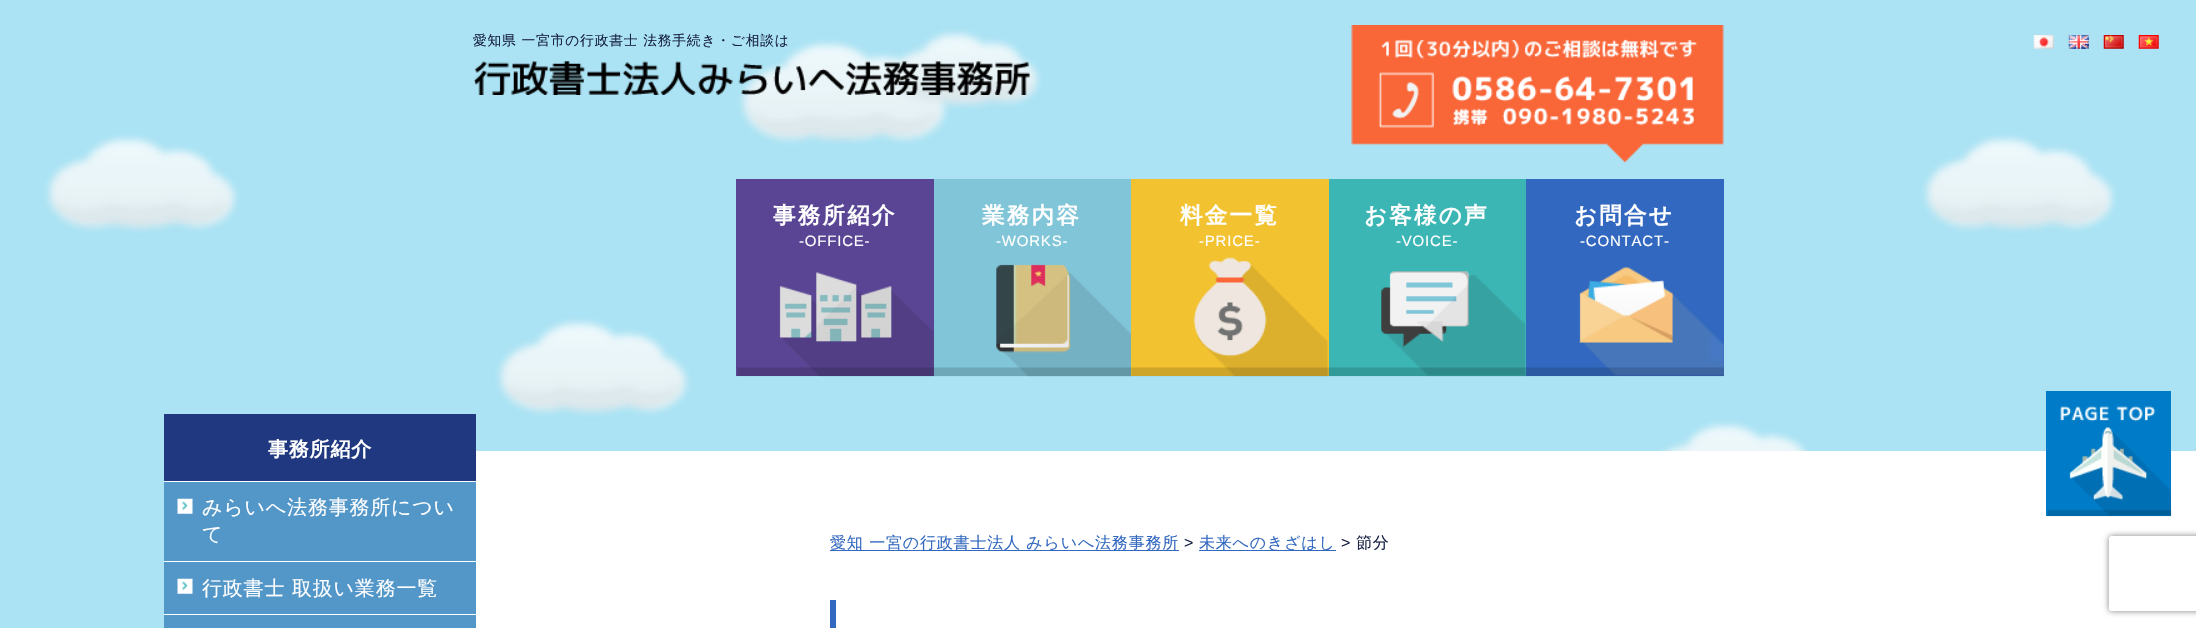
void draw(SkCanvas* canvas) {
	SkPaint fill;
	fill.setAntiAlias(true);
	auto makeFont = [&](const char* family, int weight, float size, bool italic = false) {
		SkFontStyle style(weight, SkFontStyle::kNormal_Width,
			italic ? SkFontStyle::kItalic_Slant : SkFontStyle::kUpright_Slant);
		SkFont result(fontMgr->matchFamilyStyle(family, style), size);
		result.setSubpixel(true);
		return result;
	};
	auto spacedText = [&](const char* s, float x, float y, const SkFont& font, const SkPaint& ink, float letter, float word) {
		std::vector<SkGlyphID> glyphs(font.countText(s, strlen(s), SkTextEncoding::kUTF8));
		std::vector<float> xs(glyphs.size());
		font.textToGlyphs(s, strlen(s), SkTextEncoding::kUTF8, glyphs);
		font.getXPos(glyphs, xs, x);
		float extra = 0;
		for (size_t i = 0; i < glyphs.size(); i++) {
			xs[i] += extra;
			extra += letter + word * (glyphs[i] == font.unicharToGlyph(' '));
		}
		canvas->drawTextBlob(SkTextBlob::MakeFromPosHGlyphs(glyphs, xs, y, font), 0, 0, ink);
	};
	auto box = [&](float l, float t, float r, float b) {
		canvas->drawRect(SkRect::MakeLTRB(l, t, r, b), fill);
	};
	auto picture = [&](const char* path, float l, float t, float r, float b) {
		auto image = SkImages::DeferredFromEncodedData(SkData::MakeFromFileName(path));
		canvas->drawImageRect(image, SkRect::MakeLTRB(l, t, r, b), SkSamplingOptions());
	};
	canvas->clear(0xFFFFFFFF);
	picture("image0.png", 0, 0, 2196, 628);
	picture("image1.png", 473, 61, 1030, 95);
	picture("image2.png", 1351, 25, 1724, 163);
	fill.setColor(0xFF5A4594);
	box(736, 179, 934, 376);
	picture("image3.png", 737, 272, 934, 377);
	fill.setColor(0xFF81C5D8);
	box(934, 179, 1131, 376);
	picture("image4.png", 933, 264, 1131, 377);
	fill.setColor(0xFFF2C230);
	box(1131, 179, 1329, 376);
	picture("image5.png", 1131, 257, 1329, 377);
	fill.setColor(0xFF3CB5B5);
	box(1329, 179, 1526, 376);
	picture("image6.png", 1328, 271, 1526, 377);
	fill.setColor(0xFF3268BF);
	box(1526, 179, 1724, 376);
	picture("image7.png", 1526, 267, 1724, 377);
	picture("image8.png", 2033, 35, 2054, 49);
	picture("image9.png", 2068, 35, 2089, 49);
	picture("image10.png", 2103, 35, 2124, 49);
	picture("image11.png", 2138, 35, 2159, 49);
	fill.setColor(0xFF203880);
	box(164, 414, 476, 481);
	fill.setColor(0xFF5397C9);
	box(164, 482, 476, 628);
	fill.setColor(0xFFFFFFFF);
	box(164, 481, 476, 482);
	picture("image12.png", 177, 498, 193, 514);
	box(164, 561, 476, 562);
	picture("image12.png", 177, 578, 193, 594);
	box(164, 614, 476, 615);
	box(476, 451, 2196, 628);
	fill.setColor(0xFF3268BF);
	box(830, 550, 1179, 551);
	box(1199, 550, 1336, 551);
	box(830, 600, 836, 628);
	fill.setColor(0xFF007BC7);
	box(2046, 391, 2171, 516);
	picture("image13.png", 2047, 406, 2172, 517);
	canvas->save();
	canvas->clipPath(SkPathBuilder(SkPathFillType::kEvenOdd).moveTo(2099, 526).lineTo(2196, 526).lineTo(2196, 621).lineTo(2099, 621).close().moveTo(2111.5f, 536).lineTo(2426.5f, 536).cubicTo(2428, 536, 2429, 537, 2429, 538.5f).lineTo(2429, 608.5f).cubicTo(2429, 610, 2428, 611, 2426.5f, 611).lineTo(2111.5f, 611).cubicTo(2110, 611, 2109, 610, 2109, 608.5f).lineTo(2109, 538.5f).cubicTo(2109, 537, 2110, 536, 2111.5f, 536).close().detach(), true);
	fill.setColor(0xFF808080);
	fill.setMaskFilter(SkMaskFilter::MakeBlur(kNormal_SkBlurStyle, 3));
	canvas->drawRoundRect(SkRect::MakeLTRB(2109, 536, 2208, 611), 2.5f, 2.5f, fill);
	fill.setMaskFilter(nullptr);
	canvas->restore();
	auto font1 = makeFont("WenQuanYi Zen Hei", 500, 13.75f);
	fill.setColor(0xFF182244);
	spacedText("愛知県 一宮市の行政書士 法務手続き・ご相談は", 473, 45, font1, fill, 0.8f, 0);
	auto font2 = makeFont("WenQuanYi Zen Hei", 700, 22.5f);
	fill.setColor(0xFFFFFFFF);
	spacedText("事務所紹介", 773, 223, font2, fill, 2.25f, 0);
	auto font3 = makeFont("Liberation Sans", 400, 15);
	spacedText("-OFFICE-", 799, 246, font3, fill, 0.8f, 0);
	spacedText("業務内容", 982, 223, font2, fill, 2.25f, 0);
	spacedText("-WORKS-", 996, 246, font3, fill, 0.8f, 0);
	spacedText("料金一覧", 1180, 223, font2, fill, 2.25f, 0);
	spacedText("-PRICE-", 1199, 246, font3, fill, 0.8f, 0);
	spacedText("お客様の声", 1364, 223, font2, fill, 2.25f, 0);
	spacedText("-VOICE-", 1396, 246, font3, fill, 0.8f, 0);
	spacedText("お問合せ", 1574, 223, font2, fill, 2.25f, 0);
	spacedText("-CONTACT-", 1580, 246, font3, fill, 0.8f, 0);
	auto font4 = makeFont("WenQuanYi Zen Hei", 700, 20);
	spacedText("事務所紹介", 268, 456, font4, fill, 0.8f, 0);
	auto font5 = makeFont("WenQuanYi Zen Hei", 500, 20);
	spacedText("みらいへ法務事務所につい", 202, 514, font5, fill, 0.8f, 0);
	spacedText("て", 202, 541, font5, fill, 0.8f, 0);
	spacedText("行政書士 取扱い業務一覧", 202, 595, font5, fill, 0.8f, 0);
	auto font6 = makeFont("WenQuanYi Zen Hei", 500, 16);
	fill.setColor(0xFF3268BF);
	spacedText("愛知 一宮の行政書士法人 みらいへ法務事務所", 830, 548, font6, fill, 0.8f, 0);
	auto font7 = makeFont("Liberation Sans", 400, 16);
	fill.setColor(0xFF182244);
	spacedText(">", 1184, 548, font7, fill, 0.8f, 0);
	fill.setColor(0xFF3268BF);
	spacedText("未来へのきざはし", 1199, 548, font6, fill, 0.8f, 0);
	fill.setColor(0xFF182244);
	spacedText(">", 1341, 548, font7, fill, 0.8f, 0);
	spacedText("節分", 1356, 548, font6, fill, 0.8f, 0);
}
